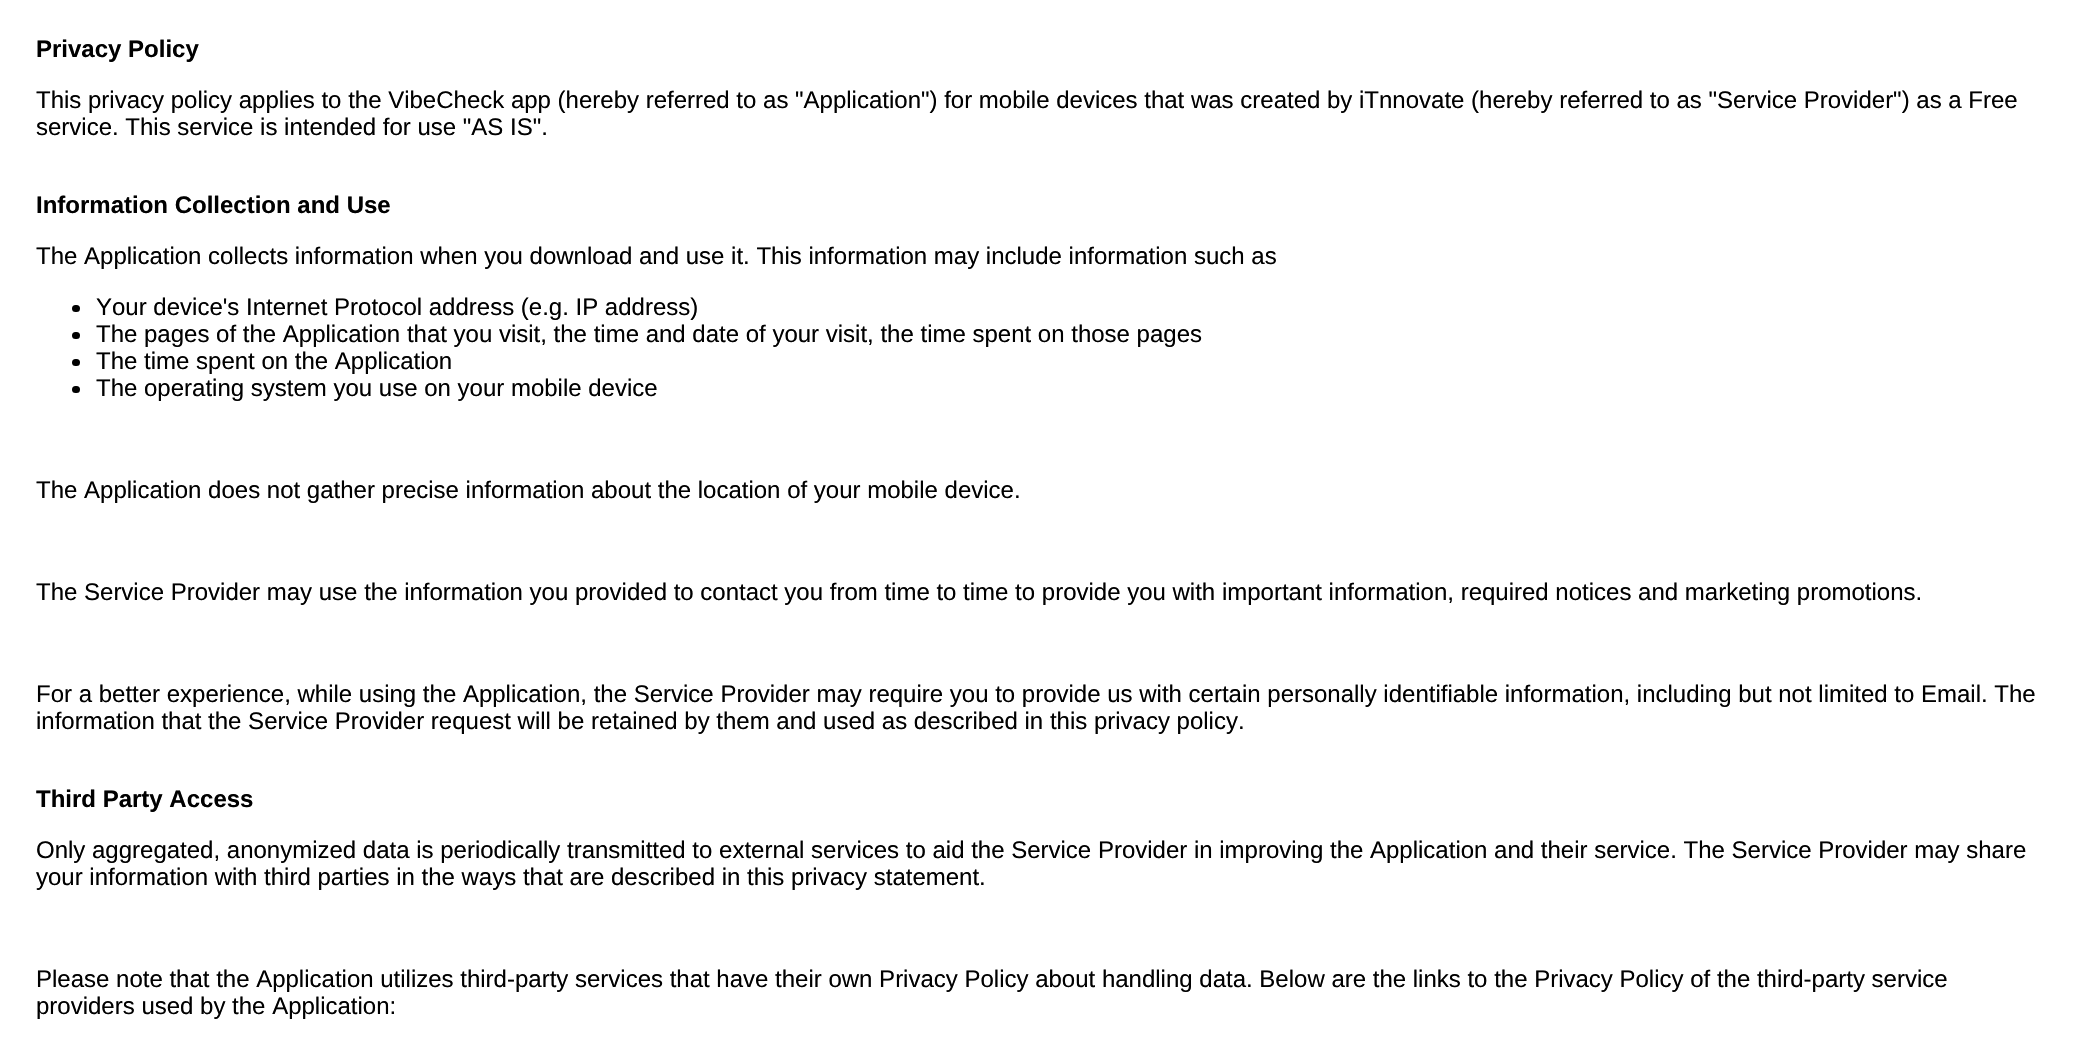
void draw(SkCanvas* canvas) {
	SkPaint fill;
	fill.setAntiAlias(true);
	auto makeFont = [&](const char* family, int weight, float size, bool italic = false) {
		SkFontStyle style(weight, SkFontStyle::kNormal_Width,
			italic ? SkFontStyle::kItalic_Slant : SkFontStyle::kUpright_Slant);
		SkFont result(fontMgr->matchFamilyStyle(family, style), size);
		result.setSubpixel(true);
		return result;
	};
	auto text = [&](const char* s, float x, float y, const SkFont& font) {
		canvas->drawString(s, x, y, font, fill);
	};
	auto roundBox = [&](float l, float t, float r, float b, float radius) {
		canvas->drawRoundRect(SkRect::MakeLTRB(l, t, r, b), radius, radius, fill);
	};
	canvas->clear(0xFFFFFFFF);
	fill.setColor(0xFF000000);
	roundBox(72, 305, 80, 312, 3.5f);
	roundBox(72, 332, 80, 339, 3.5f);
	roundBox(72, 359, 80, 366, 3.5f);
	roundBox(72, 386, 80, 393, 3.5f);
	auto font1 = makeFont("Liberation Sans", 700, 24);
	text("Privacy Policy", 36, 57, font1);
	auto font2 = makeFont("Liberation Sans", 400, 24);
	text("This privacy policy applies to the VibeCheck app (hereby referred to as \"Application\") for mobile devices that was created by iTnnovate (hereby referred to as \"Service Provider\") as a Free", 36, 108, font2);
	text("service. This service is intended for use \"AS IS\".", 36, 135, font2);
	text("Information Collection and Use", 36, 213, font1);
	text("The Application collects information when you download and use it. This information may include information such as", 36, 264, font2);
	text("Your device's Internet Protocol address (e.g. IP address)", 96, 315, font2);
	text("The pages of the Application that you visit, the time and date of your visit, the time spent on those pages", 96, 342, font2);
	text("The time spent on the Application", 96, 369, font2);
	text("The operating system you use on your mobile device", 96, 396, font2);
	text("The Application does not gather precise information about the location of your mobile device.", 36, 498, font2);
	text("The Service Provider may use the information you provided to contact you from time to time to provide you with important information, required notices and marketing promotions.", 36, 600, font2);
	text("For a better experience, while using the Application, the Service Provider may require you to provide us with certain personally identifiable information, including but not limited to Email. The", 36, 702, font2);
	text("information that the Service Provider request will be retained by them and used as described in this privacy policy.", 36, 729, font2);
	text("Third Party Access", 36, 807, font1);
	text("Only aggregated, anonymized data is periodically transmitted to external services to aid the Service Provider in improving the Application and their service. The Service Provider may share", 36, 858, font2);
	text("your information with third parties in the ways that are described in this privacy statement.", 36, 885, font2);
	text("Please note that the Application utilizes third-party services that have their own Privacy Policy about handling data. Below are the links to the Privacy Policy of the third-party service", 36, 987, font2);
	text("providers used by the Application:", 36, 1014, font2);
}
